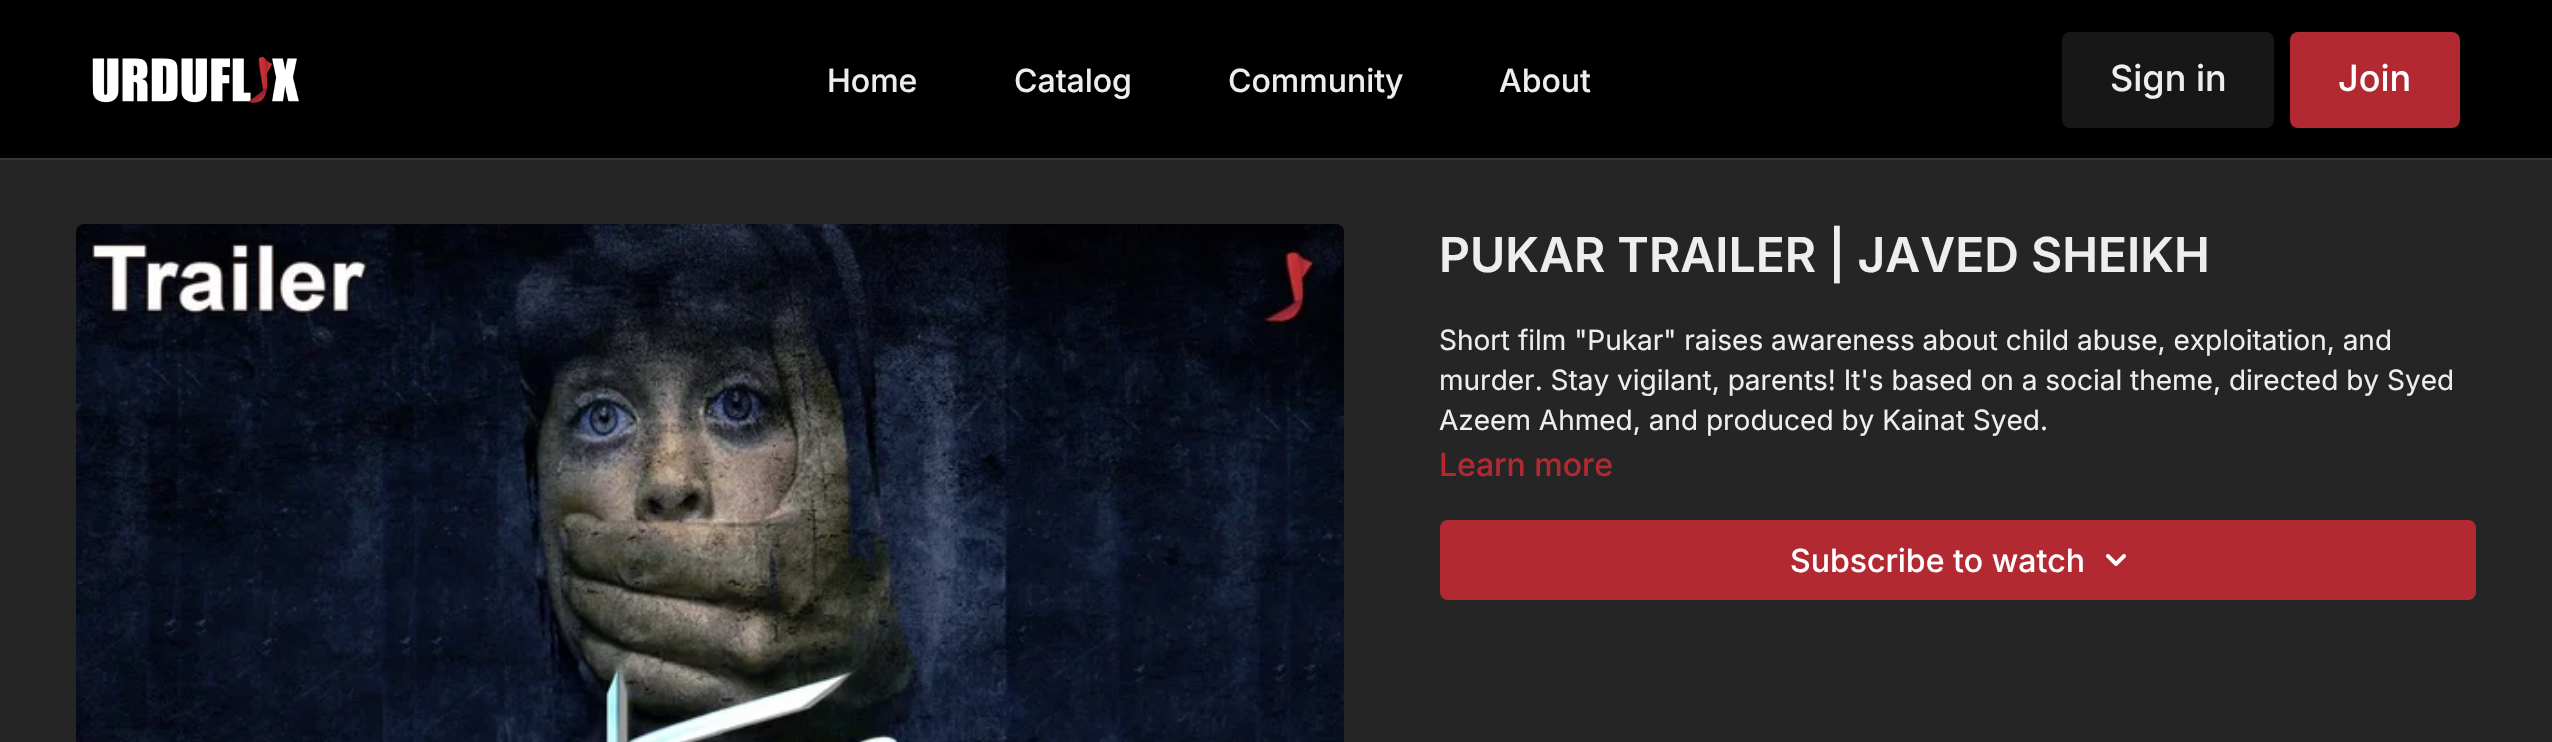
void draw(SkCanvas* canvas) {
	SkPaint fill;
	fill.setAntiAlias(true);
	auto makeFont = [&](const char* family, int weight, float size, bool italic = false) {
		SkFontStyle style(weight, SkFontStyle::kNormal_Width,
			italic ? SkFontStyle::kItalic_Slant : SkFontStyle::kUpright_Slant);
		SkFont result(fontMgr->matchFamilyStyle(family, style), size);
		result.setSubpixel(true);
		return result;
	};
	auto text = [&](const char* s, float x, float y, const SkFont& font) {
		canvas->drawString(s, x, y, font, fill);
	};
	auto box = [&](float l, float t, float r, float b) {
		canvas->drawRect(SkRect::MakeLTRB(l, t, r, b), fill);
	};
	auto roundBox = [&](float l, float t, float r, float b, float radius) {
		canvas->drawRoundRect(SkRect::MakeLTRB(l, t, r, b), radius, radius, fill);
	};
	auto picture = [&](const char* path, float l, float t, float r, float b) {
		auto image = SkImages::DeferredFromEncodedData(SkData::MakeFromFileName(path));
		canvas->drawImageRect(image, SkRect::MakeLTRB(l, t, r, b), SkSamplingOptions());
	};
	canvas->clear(0xFF252525);
	fill.setColor(0xFF000000);
	box(0, 0, 2552, 158);
	fill.setColor(0xFF373737);
	box(0, 158, 2552, 160);
	picture("image0.png", 92, 56, 299, 103);
	fill.setColor(0xFF171717);
	roundBox(2062, 32, 2274, 128, 8);
	fill.setColor(0xFFB32931);
	roundBox(2290, 32, 2460, 128, 8);
	picture("image1.png", 76, 224, 1344, 742);
	roundBox(1440, 520, 2476, 600, 8);
	picture("image2.png", 2106, 554, 2126, 566);
	auto font1 = makeFont("Inter", 500, 32);
	fill.setColor(0xFFEEEEEE);
	text("Home", 827, 92, font1);
	text("Catalog", 1014, 92, font1);
	text("Community", 1228, 92, font1);
	text("About", 1499, 92, font1);
	auto font2 = makeFont("Inter", 500, 36);
	text("Sign in", 2110, 91, font2);
	fill.setColor(0xFFFFFFFF);
	text("Join", 2338, 91, font2);
	auto font3 = makeFont("Inter", 600, 48);
	fill.setColor(0xFFEEEEEE);
	text("PUKAR TRAILER | JAVED SHEIKH", 1439, 272, font3);
	auto font4 = makeFont("Inter", 400, 28);
	text("Short film \"Pukar\" raises awareness about child abuse, exploitation, and", 1439, 350, font4);
	text("murder. Stay vigilant, parents! It's based on a social theme, directed by Syed", 1439, 390, font4);
	text("Azeem Ahmed, and produced by Kainat Syed.", 1439, 430, font4);
	fill.setColor(0xFFB32931);
	text("Learn more", 1439, 476, font1);
	fill.setColor(0xFFFFFFFF);
	text("Subscribe to watch", 1790, 572, font1);
}
